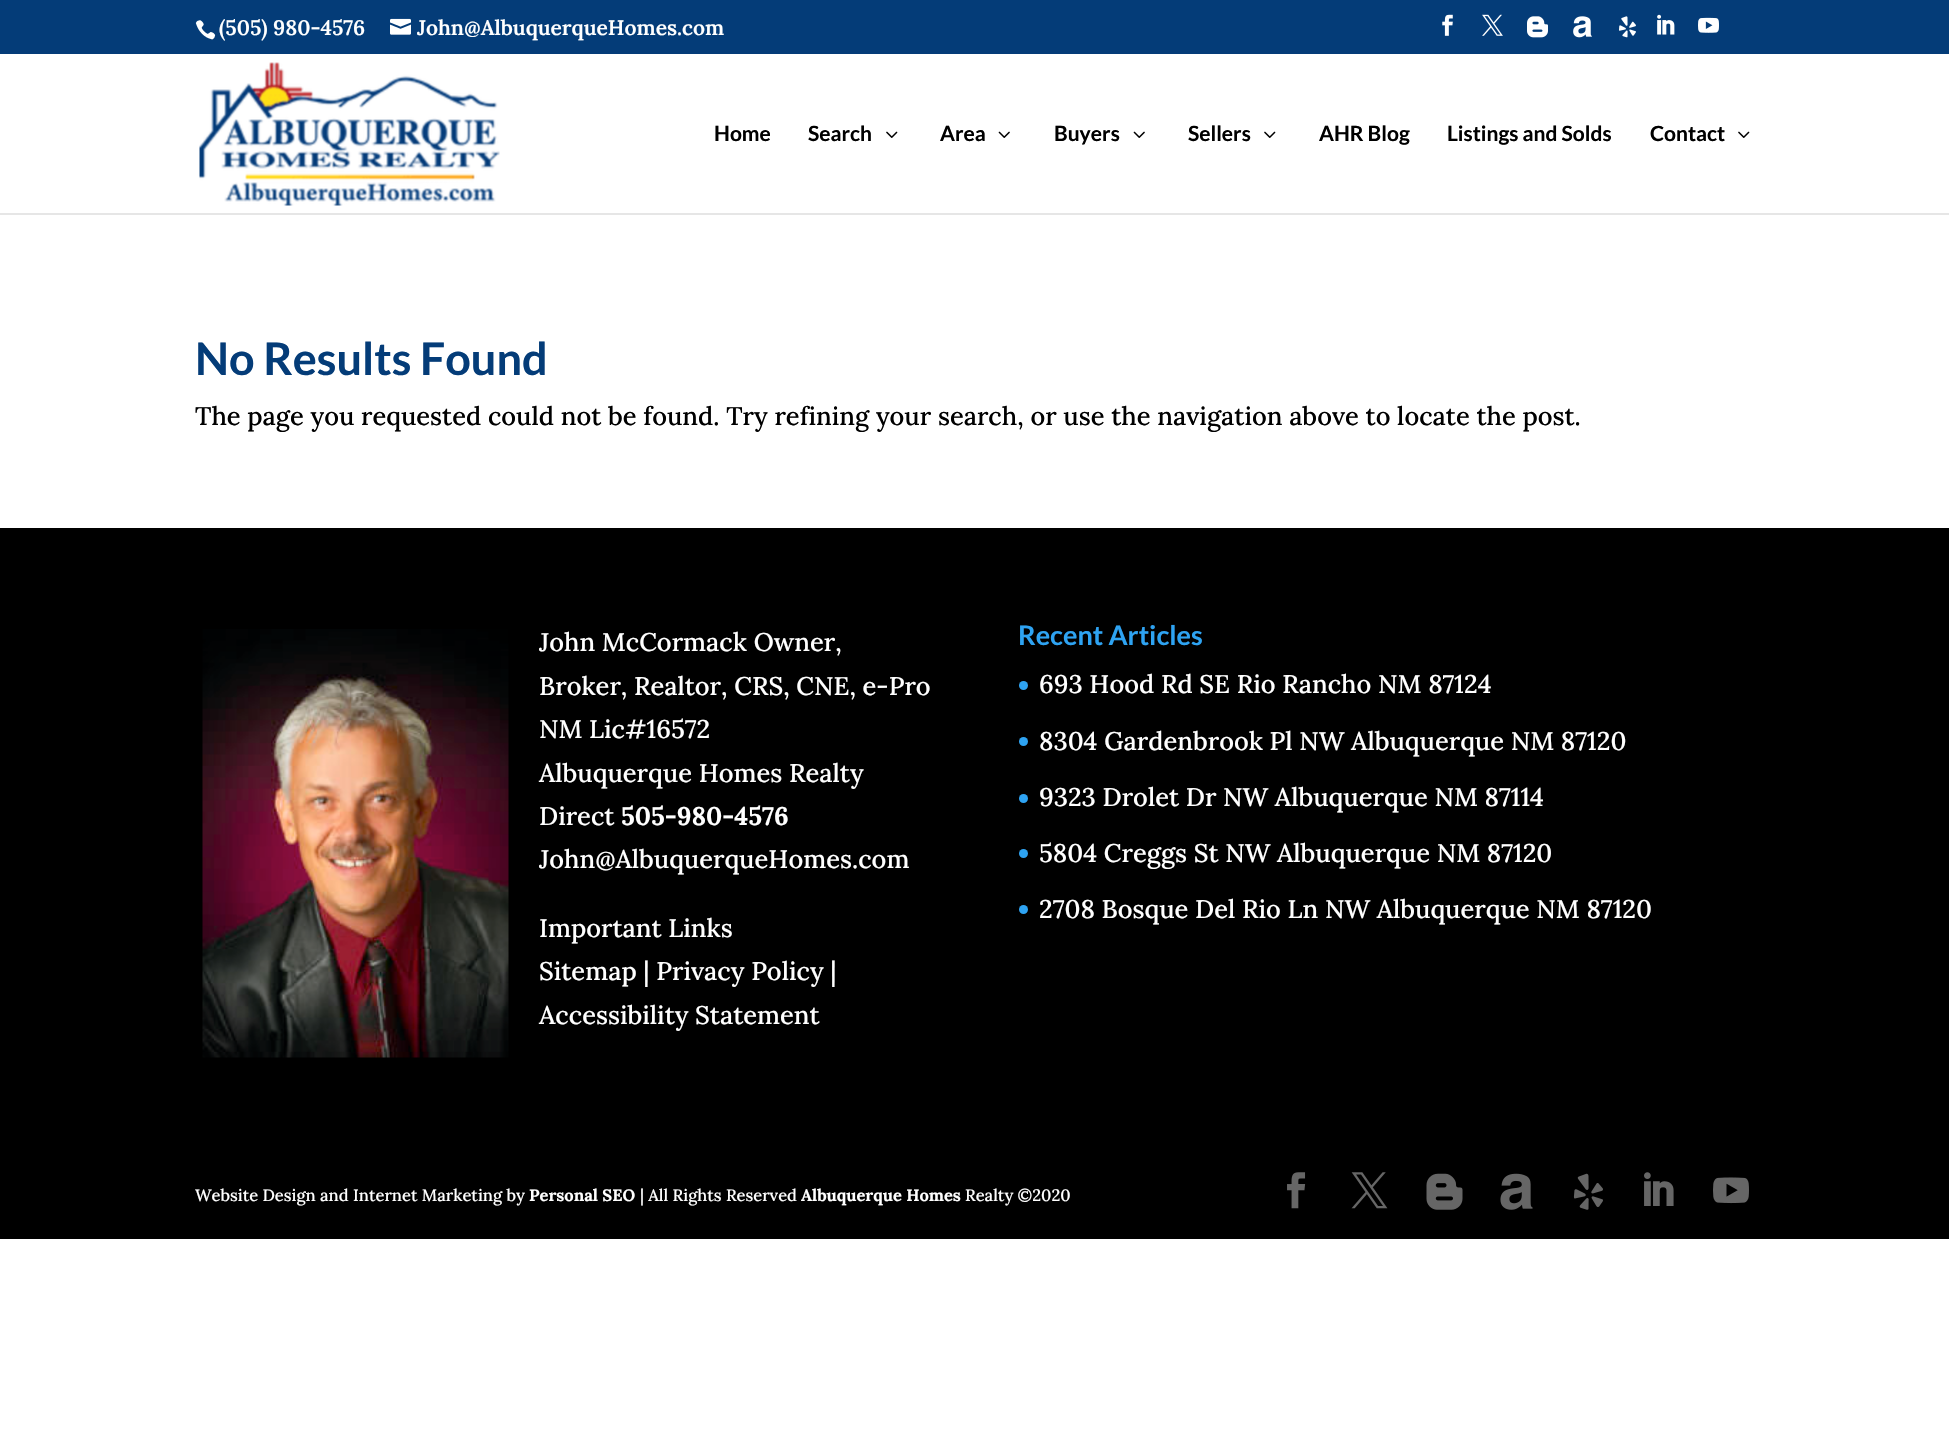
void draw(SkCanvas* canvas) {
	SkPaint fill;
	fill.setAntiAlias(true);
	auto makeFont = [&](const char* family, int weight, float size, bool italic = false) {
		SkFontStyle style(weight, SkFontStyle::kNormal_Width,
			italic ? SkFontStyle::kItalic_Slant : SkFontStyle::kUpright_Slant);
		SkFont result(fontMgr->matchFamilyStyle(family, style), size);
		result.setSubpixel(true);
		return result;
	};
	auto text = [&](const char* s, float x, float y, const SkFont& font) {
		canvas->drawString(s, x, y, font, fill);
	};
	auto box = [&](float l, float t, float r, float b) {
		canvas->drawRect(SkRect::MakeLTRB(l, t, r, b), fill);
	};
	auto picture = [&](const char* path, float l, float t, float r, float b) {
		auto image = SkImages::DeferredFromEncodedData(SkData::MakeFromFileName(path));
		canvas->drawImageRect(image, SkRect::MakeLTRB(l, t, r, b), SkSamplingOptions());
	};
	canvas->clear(0xFFFFFFFF);
	fill.setColor(0xFF043C78);
	box(0, 0, 1949, 54);
	picture("image0.png", 195, 20, 216, 40);
	picture("image1.png", 390, 18, 411, 35);
	picture("image2.png", 1442, 14, 1453, 36);
	picture("image3.png", 1482, 14, 1503, 36);
	picture("image4.png", 1527, 16, 1548, 38);
	picture("image5.png", 1573, 16, 1592, 38);
	picture("image6.png", 1619, 16, 1636, 38);
	picture("image7.png", 1657, 14, 1675, 35);
	picture("image8.png", 1698, 17, 1719, 33);
	fill.setColor(0xFFE6E6E6);
	box(0, 213, 1949, 215);
	picture("image9.png", 199, 62, 500, 206);
	picture("image10.png", 886, 131, 898, 138);
	picture("image11.png", 998, 131, 1010, 138);
	picture("image11.png", 1133, 131, 1145, 138);
	picture("image10.png", 1264, 131, 1276, 138);
	picture("image10.png", 1738, 131, 1750, 138);
	fill.setColor(0xFF000000);
	box(0, 528, 1949, 1239);
	picture("image12.png", 202, 629, 509, 1058);
	fill.setColor(0xFF2EA3F2);
	canvas->drawCircle(1023.5f, 685.5f, 4.5f, fill);
	canvas->drawCircle(1023.5f, 741.5f, 4.5f, fill);
	canvas->drawCircle(1023.5f, 798.5f, 4.5f, fill);
	canvas->drawCircle(1023.5f, 853.5f, 4.5f, fill);
	canvas->drawCircle(1023.5f, 909.5f, 4.5f, fill);
	picture("image13.png", 1287, 1172, 1306, 1209);
	picture("image14.png", 1351, 1172, 1388, 1209);
	picture("image15.png", 1426, 1173, 1463, 1210);
	picture("image16.png", 1500, 1173, 1533, 1210);
	picture("image17.png", 1573, 1173, 1603, 1210);
	picture("image18.png", 1644, 1172, 1674, 1206);
	picture("image19.png", 1713, 1177, 1749, 1204);
	auto font1 = makeFont("Lora", 600, 21);
	fill.setColor(0xFFFFFFFF);
	text("(505) 980-4576", 219, 35, font1);
	text("John@AlbuquerqueHomes.com", 417, 35, font1);
	auto font2 = makeFont("Lato", 700, 21);
	fill.setColor(0xFF000000);
	text("Home", 714, 141, font2);
	text("Search", 808, 141, font2);
	text("Area", 940, 141, font2);
	text("Buyers", 1054, 141, font2);
	text("Sellers", 1188, 141, font2);
	text("AHR Blog", 1319, 141, font2);
	text("Listings and Solds", 1447, 141, font2);
	text("Contact", 1650, 141, font2);
	auto font3 = makeFont("Lato", 700, 45);
	fill.setColor(0xFF043C78);
	text("No Results Found", 195, 375, font3);
	auto font4 = makeFont("Lora", 500, 25.5f);
	fill.setColor(0xFF000000);
	text("The page you requested could not be found. Try refining your search, or use the navigation above to locate the post.", 195, 425, font4);
	fill.setColor(0xFFFFFFFF);
	text("John McCormack Owner,", 539, 651, font4);
	text("Broker, Realtor, CRS, CNE, e-Pro", 539, 695, font4);
	text("NM Lic#16572", 539, 738, font4);
	text("Albuquerque Homes Realty", 539, 782, font4);
	text("Direct", 539, 825, font4);
	auto font5 = makeFont("Lora", 700, 25.5f);
	text("505-980-4576", 621, 825, font5);
	text("John@AlbuquerqueHomes.com", 539, 868, font4);
	text("Important Links", 539, 937, font4);
	text("Sitemap | Privacy Policy |", 539, 980, font4);
	text("Accessibility Statement", 539, 1024, font4);
	auto font6 = makeFont("Lato", 700, 27);
	fill.setColor(0xFF2EA3F2);
	text("Recent Articles", 1018, 645, font6);
	fill.setColor(0xFFFFFFFF);
	text("693 Hood Rd SE Rio Rancho NM 87124", 1039, 693, font4);
	text("8304 Gardenbrook Pl NW Albuquerque NM 87120", 1039, 750, font4);
	text("9323 Drolet Dr NW Albuquerque NM 87114", 1039, 806, font4);
	text("5804 Creggs St NW Albuquerque NM 87120", 1039, 862, font4);
	text("2708 Bosque Del Rio Ln NW Albuquerque NM 87120", 1039, 918, font4);
	auto font7 = makeFont("Lora", 500, 16.5f);
	text("Website Design and Internet Marketing by", 195, 1201, font7);
	auto font8 = makeFont("Lora", 700, 16.5f);
	text("Personal SEO", 529, 1201, font8);
	text("| All Rights Reserved", 640, 1201, font7);
	text("Albuquerque Homes", 801, 1201, font8);
	text("Realty ©2020", 965, 1201, font7);
}
